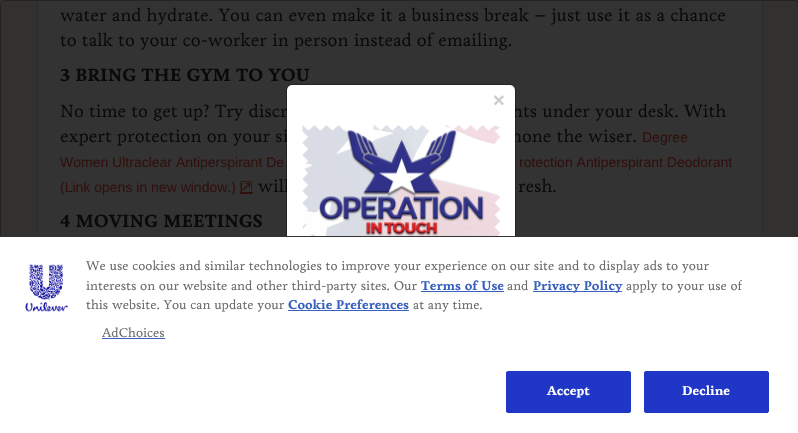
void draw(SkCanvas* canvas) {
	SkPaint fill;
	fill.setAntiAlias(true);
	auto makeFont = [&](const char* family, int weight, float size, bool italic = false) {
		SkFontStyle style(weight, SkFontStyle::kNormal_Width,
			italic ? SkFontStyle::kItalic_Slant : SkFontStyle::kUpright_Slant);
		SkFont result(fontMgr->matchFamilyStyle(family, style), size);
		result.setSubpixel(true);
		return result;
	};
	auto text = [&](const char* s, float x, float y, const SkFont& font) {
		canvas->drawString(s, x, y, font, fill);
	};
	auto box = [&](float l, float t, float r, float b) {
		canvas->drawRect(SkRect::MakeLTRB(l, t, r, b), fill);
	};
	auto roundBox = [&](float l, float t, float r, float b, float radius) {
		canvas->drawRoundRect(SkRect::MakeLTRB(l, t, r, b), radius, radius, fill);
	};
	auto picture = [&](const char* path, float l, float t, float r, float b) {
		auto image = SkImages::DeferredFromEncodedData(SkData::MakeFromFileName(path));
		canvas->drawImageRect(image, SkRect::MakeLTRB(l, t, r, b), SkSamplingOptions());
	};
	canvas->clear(0xFF323130);
	fill.setColor(0xFF333333);
	box(38, 0, 762, 236);
	fill.setStyle(SkPaint::kStroke_Style);
	fill.setStrokeWidth(1);
	fill.setColor(0xFF2C2C2C);
	canvas->drawRect(SkRect::MakeLTRB(37.5f, -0.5f, 762.5f, 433.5f), fill);
	fill.setStyle(SkPaint::kFill_Style);
	fill.setColor(0xFF30100D);
	canvas->drawPath(SkPathBuilder().moveTo(240, 182).lineTo(240.5f, 182).lineTo(240.5f, 193).lineTo(252, 193).lineTo(252, 194).lineTo(240, 194).close().detach(), fill);
	box(241, 181, 242, 193);
	box(241, 192, 253, 193);
	fill.setStyle(SkPaint::kStroke_Style);
	fill.setColor(0x4D000000);
	canvas->drawRoundRect(SkRect::MakeLTRB(0.5f, 0.5f, 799.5f, 432.5f), 5.5f, 5.5f, fill);
	auto font1 = makeFont("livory", 400, 18);
	fill.setStyle(SkPaint::kFill_Style);
	fill.setColor(0xFF0A0A0A);
	text("water and hydrate. You can even make it a business break – just use it as a chance", 60, 21, font1);
	text("to talk to your co-worker in person instead of emailing.", 60, 46, font1);
	auto font2 = makeFont("livory", 500, 18);
	text("3 BRING THE GYM TO YOU", 60, 81, font2);
	text("No time to get up? Try discr", 60, 117, font1);
	text("hts under your desk. With", 512, 117, font1);
	text("expert protection on your si", 60, 142, font1);
	text("none the wiser.", 511, 142, font1);
	auto font3 = makeFont("Liberation Sans", 400, 14);
	fill.setColor(0xFF30100D);
	text("Degree", 642, 142, font3);
	text("Women Ultraclear Antiperspirant De", 60, 167, font3);
	text("rotection Antiperspirant Deodorant", 519, 167, font3);
	text("(Link opens in new window.)", 60, 192, font3);
	auto font4 = makeFont("DejaVu Sans", 400, 14);
	canvas->save();
	canvas->rotate(-90, 252, 192);
	text("⇲", 252, 192, font4);
	canvas->restore();
	fill.setColor(0xFF0A0A0A);
	text("will", 258, 192, font1);
	text("resh.", 518, 192, font1);
	text("4 MOVING MEETINGS", 60, 227, font2);
	fill.setColor(0xFFFFFFFF);
	roundBox(287, 85, 515, 348, 5);
	fill.setStyle(SkPaint::kStroke_Style);
	fill.setColor(0x4D000000);
	canvas->drawRoundRect(SkRect::MakeLTRB(286.5f, 84.5f, 515.5f, 348.5f), 5.5f, 5.5f, fill);
	auto font5 = makeFont("Liberation Sans", 700, 20);
	fill.setStyle(SkPaint::kFill_Style);
	fill.setColor(0xFFCCCCCC);
	text("×", 493, 107, font5);
	picture("image0.png", 302, 125, 500, 236);
	fill.setColor(0xFFFFFFFF);
	box(0, 237, 798, 433);
	fill.setColor(0xFF333333);
	box(0, 236, 798, 237);
	picture("image1.png", 25, 264, 68, 312);
	auto font6 = makeFont("livory", 400, 13);
	fill.setColor(0xFF696969);
	text("We use cookies and similar technologies to improve your experience on our site and to display ads to your", 86, 270, font6);
	text("interests on our website and other third-party sites. Our", 86, 290, font6);
	auto font7 = makeFont("livory", 500, 13);
	fill.setColor(0xFF3860BE);
	text("Terms of Use", 421, 290, font7);
	box(421, 291, 504, 292);
	fill.setColor(0xFF696969);
	text("and", 507, 290, font6);
	fill.setColor(0xFF3860BE);
	box(533, 291, 622, 292);
	text("Privacy Policy", 533, 290, font7);
	canvas->save();
	canvas->clipRect(SkRect::MakeLTRB(16, 257, 742, 361));
	fill.setColor(0xFF696969);
	text("apply to your use of", 626, 290, font6);
	canvas->restore();
	text("this website. You can update your", 86, 309, font6);
	fill.setColor(0xFF3860BE);
	text("Cookie Preferences", 288, 309, font7);
	box(288, 310, 409, 311);
	fill.setColor(0xFF696969);
	text("at any time.", 413, 309, font6);
	text("AdChoices", 102, 337, font6);
	fill.setColor(0xFF3860BE);
	box(102, 338, 165, 339);
	fill.setColor(0xFF1F36C7);
	canvas->drawRoundRect(SkRect::MakeLTRB(506.5f, 371.5f, 630.5f, 412.5f), 1.5f, 1.5f, fill);
	fill.setStyle(SkPaint::kStroke_Style);
	canvas->drawRoundRect(SkRect::MakeLTRB(506.5f, 371.5f, 630.5f, 412.5f), 1.5f, 1.5f, fill);
	fill.setStyle(SkPaint::kFill_Style);
	fill.setColor(0xFFFFFFFF);
	text("Accept", 547, 395, font7);
	fill.setColor(0xFF1F36C7);
	canvas->drawRoundRect(SkRect::MakeLTRB(644.5f, 371.5f, 768.5f, 412.5f), 1.5f, 1.5f, fill);
	fill.setStyle(SkPaint::kStroke_Style);
	canvas->drawRoundRect(SkRect::MakeLTRB(644.5f, 371.5f, 768.5f, 412.5f), 1.5f, 1.5f, fill);
	fill.setStyle(SkPaint::kFill_Style);
	fill.setColor(0xFFFFFFFF);
	text("Decline", 682, 395, font7);
}
